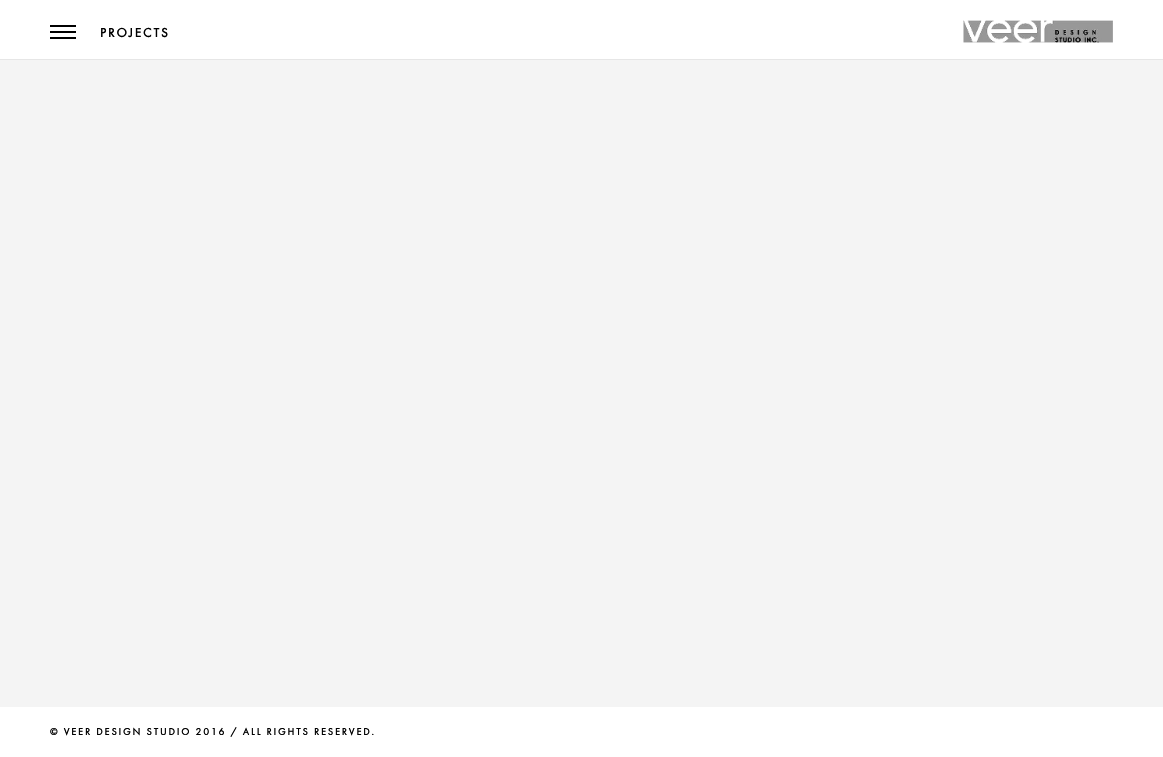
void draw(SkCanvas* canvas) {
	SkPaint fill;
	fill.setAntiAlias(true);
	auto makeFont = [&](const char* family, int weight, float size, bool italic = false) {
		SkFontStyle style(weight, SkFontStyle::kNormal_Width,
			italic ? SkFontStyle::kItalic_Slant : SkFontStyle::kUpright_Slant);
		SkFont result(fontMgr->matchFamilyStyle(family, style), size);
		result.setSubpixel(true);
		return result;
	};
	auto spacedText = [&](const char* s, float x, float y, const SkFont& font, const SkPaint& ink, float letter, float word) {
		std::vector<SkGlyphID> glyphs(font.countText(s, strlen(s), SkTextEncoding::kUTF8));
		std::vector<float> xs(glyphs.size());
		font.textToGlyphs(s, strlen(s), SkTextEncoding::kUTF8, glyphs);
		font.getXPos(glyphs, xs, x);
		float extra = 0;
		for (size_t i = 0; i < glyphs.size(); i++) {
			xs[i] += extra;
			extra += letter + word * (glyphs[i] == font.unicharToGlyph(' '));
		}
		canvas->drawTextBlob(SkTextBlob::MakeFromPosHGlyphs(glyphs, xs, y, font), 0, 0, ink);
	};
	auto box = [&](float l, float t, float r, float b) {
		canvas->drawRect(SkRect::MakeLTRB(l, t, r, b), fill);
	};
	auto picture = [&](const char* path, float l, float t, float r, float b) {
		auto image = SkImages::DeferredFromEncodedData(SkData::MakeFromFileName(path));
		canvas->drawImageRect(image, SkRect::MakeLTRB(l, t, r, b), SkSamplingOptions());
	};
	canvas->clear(0xFFF4F4F4);
	fill.setColor(0xFFFFFFFF);
	box(0, 0, 1163, 59);
	fill.setColor(0xFFE6E6E6);
	box(0, 59, 1163, 60);
	fill.setColor(0xFF000000);
	box(50, 25, 76, 27);
	box(50, 31, 76, 33);
	box(50, 37, 76, 39);
	picture("image0.png", 963, 20, 1113, 43);
	fill.setColor(0xFFFFFFFF);
	box(0, 707, 1163, 757);
	auto font1 = makeFont("Futura PT", 700, 13);
	fill.setColor(0xFF000000);
	spacedText("PROJECTS", 100, 37, font1, fill, 2, 0);
	auto font2 = makeFont("Futura PT", 700, 10);
	spacedText("© VEER DESIGN STUDIO 2016 / ALL RIGHTS RESERVED.", 50, 735, font2, fill, 2, 0);
}
